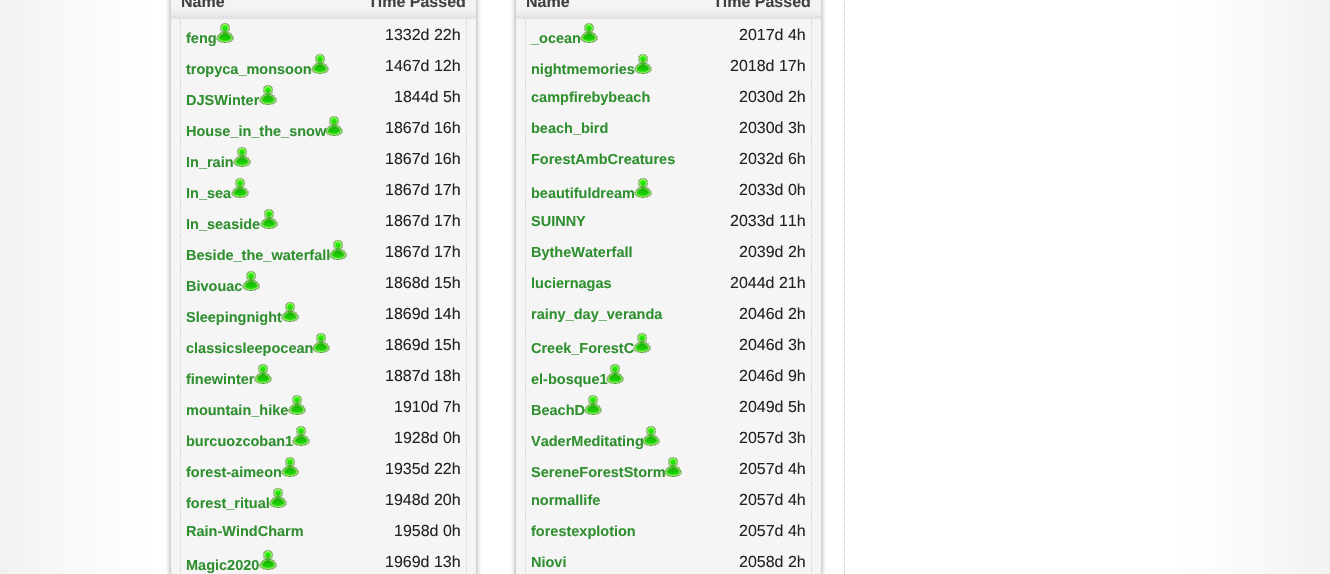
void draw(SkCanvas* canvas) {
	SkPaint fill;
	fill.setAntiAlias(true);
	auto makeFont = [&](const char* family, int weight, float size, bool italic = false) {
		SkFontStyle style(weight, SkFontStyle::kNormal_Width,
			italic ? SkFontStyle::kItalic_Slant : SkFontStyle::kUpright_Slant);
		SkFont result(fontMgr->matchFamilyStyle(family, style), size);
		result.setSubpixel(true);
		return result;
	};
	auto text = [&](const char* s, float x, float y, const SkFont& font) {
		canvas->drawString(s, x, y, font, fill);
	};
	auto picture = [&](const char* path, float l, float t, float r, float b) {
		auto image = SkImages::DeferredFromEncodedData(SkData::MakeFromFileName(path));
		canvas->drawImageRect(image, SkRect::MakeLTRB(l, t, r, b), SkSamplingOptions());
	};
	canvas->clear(0xFFFFFFFF);
	picture("image0.png", 0, 0, 1330, 574);
	picture("image1.png", 844, 1, 845, 574);
	picture("image2.png", 166, 0, 481, 574);
	picture("image3.png", 171, 0, 476, 19);
	fill.setStyle(SkPaint::kStroke_Style);
	fill.setStrokeWidth(1);
	fill.setColor(0xFFD0D0D0);
	fill.setPathEffect(SkDashPathEffect::Make({{1, 1}}, 0));
	canvas->drawPath(SkPathBuilder().moveTo(180.5f, 19).lineTo(180.5f, 50).detach(), fill);
	fill.setPathEffect(nullptr);
	picture("image4.png", 216, 23, 234, 43);
	fill.setPathEffect(SkDashPathEffect::Make({{1, 1}}, 0));
	canvas->drawPath(SkPathBuilder().moveTo(466.5f, 19).lineTo(466.5f, 50).detach(), fill);
	fill.setPathEffect(nullptr);
	fill.setPathEffect(SkDashPathEffect::Make({{1, 1}}, 0));
	canvas->drawPath(SkPathBuilder().moveTo(180.5f, 50).lineTo(180.5f, 81).detach(), fill);
	fill.setPathEffect(nullptr);
	picture("image4.png", 311, 54, 329, 74);
	fill.setPathEffect(SkDashPathEffect::Make({{1, 1}}, 0));
	canvas->drawPath(SkPathBuilder().moveTo(466.5f, 50).lineTo(466.5f, 81).detach(), fill);
	fill.setPathEffect(nullptr);
	fill.setPathEffect(SkDashPathEffect::Make({{1, 1}}, 0));
	canvas->drawPath(SkPathBuilder().moveTo(180.5f, 81).lineTo(180.5f, 112).detach(), fill);
	fill.setPathEffect(nullptr);
	picture("image4.png", 259, 85, 277, 105);
	fill.setPathEffect(SkDashPathEffect::Make({{1, 1}}, 0));
	canvas->drawPath(SkPathBuilder().moveTo(466.5f, 81).lineTo(466.5f, 112).detach(), fill);
	fill.setPathEffect(nullptr);
	fill.setPathEffect(SkDashPathEffect::Make({{1, 1}}, 0));
	canvas->drawPath(SkPathBuilder().moveTo(180.5f, 112).lineTo(180.5f, 143).detach(), fill);
	fill.setPathEffect(nullptr);
	fill.setPathEffect(SkDashPathEffect::Make({{1, 1}}, 0));
	canvas->drawPath(SkPathBuilder().moveTo(466.5f, 112).lineTo(466.5f, 143).detach(), fill);
	fill.setPathEffect(nullptr);
	fill.setPathEffect(SkDashPathEffect::Make({{1, 1}}, 0));
	canvas->drawPath(SkPathBuilder().moveTo(180.5f, 143).lineTo(180.5f, 174).detach(), fill);
	fill.setPathEffect(nullptr);
	picture("image4.png", 233, 147, 251, 167);
	fill.setPathEffect(SkDashPathEffect::Make({{1, 1}}, 0));
	canvas->drawPath(SkPathBuilder().moveTo(466.5f, 143).lineTo(466.5f, 174).detach(), fill);
	fill.setPathEffect(nullptr);
	fill.setPathEffect(SkDashPathEffect::Make({{1, 1}}, 0));
	canvas->drawPath(SkPathBuilder().moveTo(180.5f, 174).lineTo(180.5f, 205).detach(), fill);
	fill.setPathEffect(nullptr);
	picture("image4.png", 231, 178, 249, 198);
	fill.setPathEffect(SkDashPathEffect::Make({{1, 1}}, 0));
	canvas->drawPath(SkPathBuilder().moveTo(466.5f, 174).lineTo(466.5f, 205).detach(), fill);
	fill.setPathEffect(nullptr);
	fill.setPathEffect(SkDashPathEffect::Make({{1, 1}}, 0));
	canvas->drawPath(SkPathBuilder().moveTo(180.5f, 205).lineTo(180.5f, 236).detach(), fill);
	fill.setPathEffect(nullptr);
	picture("image4.png", 260, 209, 278, 229);
	fill.setPathEffect(SkDashPathEffect::Make({{1, 1}}, 0));
	canvas->drawPath(SkPathBuilder().moveTo(466.5f, 205).lineTo(466.5f, 236).detach(), fill);
	fill.setPathEffect(nullptr);
	fill.setPathEffect(SkDashPathEffect::Make({{1, 1}}, 0));
	canvas->drawPath(SkPathBuilder().moveTo(180.5f, 236).lineTo(180.5f, 267).detach(), fill);
	fill.setPathEffect(nullptr);
	picture("image4.png", 329, 240, 347, 260);
	fill.setPathEffect(SkDashPathEffect::Make({{1, 1}}, 0));
	canvas->drawPath(SkPathBuilder().moveTo(466.5f, 236).lineTo(466.5f, 267).detach(), fill);
	fill.setPathEffect(nullptr);
	fill.setPathEffect(SkDashPathEffect::Make({{1, 1}}, 0));
	canvas->drawPath(SkPathBuilder().moveTo(180.5f, 267).lineTo(180.5f, 298).detach(), fill);
	fill.setPathEffect(nullptr);
	picture("image4.png", 242, 271, 260, 291);
	fill.setPathEffect(SkDashPathEffect::Make({{1, 1}}, 0));
	canvas->drawPath(SkPathBuilder().moveTo(466.5f, 267).lineTo(466.5f, 298).detach(), fill);
	fill.setPathEffect(nullptr);
	fill.setPathEffect(SkDashPathEffect::Make({{1, 1}}, 0));
	canvas->drawPath(SkPathBuilder().moveTo(180.5f, 298).lineTo(180.5f, 329).detach(), fill);
	fill.setPathEffect(nullptr);
	fill.setPathEffect(SkDashPathEffect::Make({{1, 1}}, 0));
	canvas->drawPath(SkPathBuilder().moveTo(466.5f, 298).lineTo(466.5f, 329).detach(), fill);
	fill.setPathEffect(nullptr);
	fill.setPathEffect(SkDashPathEffect::Make({{1, 1}}, 0));
	canvas->drawPath(SkPathBuilder().moveTo(180.5f, 329).lineTo(180.5f, 360).detach(), fill);
	fill.setPathEffect(nullptr);
	picture("image4.png", 312, 333, 330, 353);
	fill.setPathEffect(SkDashPathEffect::Make({{1, 1}}, 0));
	canvas->drawPath(SkPathBuilder().moveTo(466.5f, 329).lineTo(466.5f, 360).detach(), fill);
	fill.setPathEffect(nullptr);
	fill.setPathEffect(SkDashPathEffect::Make({{1, 1}}, 0));
	canvas->drawPath(SkPathBuilder().moveTo(180.5f, 360).lineTo(180.5f, 391).detach(), fill);
	fill.setPathEffect(nullptr);
	picture("image4.png", 254, 364, 272, 384);
	fill.setPathEffect(SkDashPathEffect::Make({{1, 1}}, 0));
	canvas->drawPath(SkPathBuilder().moveTo(466.5f, 360).lineTo(466.5f, 391).detach(), fill);
	fill.setPathEffect(nullptr);
	fill.setPathEffect(SkDashPathEffect::Make({{1, 1}}, 0));
	canvas->drawPath(SkPathBuilder().moveTo(180.5f, 391).lineTo(180.5f, 422).detach(), fill);
	fill.setPathEffect(nullptr);
	picture("image4.png", 288, 395, 306, 415);
	fill.setPathEffect(SkDashPathEffect::Make({{1, 1}}, 0));
	canvas->drawPath(SkPathBuilder().moveTo(466.5f, 391).lineTo(466.5f, 422).detach(), fill);
	fill.setPathEffect(nullptr);
	fill.setPathEffect(SkDashPathEffect::Make({{1, 1}}, 0));
	canvas->drawPath(SkPathBuilder().moveTo(180.5f, 422).lineTo(180.5f, 453).detach(), fill);
	fill.setPathEffect(nullptr);
	fill.setPathEffect(SkDashPathEffect::Make({{1, 1}}, 0));
	canvas->drawPath(SkPathBuilder().moveTo(466.5f, 422).lineTo(466.5f, 453).detach(), fill);
	fill.setPathEffect(nullptr);
	fill.setPathEffect(SkDashPathEffect::Make({{1, 1}}, 0));
	canvas->drawPath(SkPathBuilder().moveTo(180.5f, 453).lineTo(180.5f, 484).detach(), fill);
	fill.setPathEffect(nullptr);
	picture("image4.png", 281, 457, 299, 477);
	fill.setPathEffect(SkDashPathEffect::Make({{1, 1}}, 0));
	canvas->drawPath(SkPathBuilder().moveTo(466.5f, 453).lineTo(466.5f, 484).detach(), fill);
	fill.setPathEffect(nullptr);
	fill.setPathEffect(SkDashPathEffect::Make({{1, 1}}, 0));
	canvas->drawPath(SkPathBuilder().moveTo(180.5f, 484).lineTo(180.5f, 515).detach(), fill);
	fill.setPathEffect(nullptr);
	picture("image4.png", 269, 488, 287, 508);
	fill.setPathEffect(SkDashPathEffect::Make({{1, 1}}, 0));
	canvas->drawPath(SkPathBuilder().moveTo(466.5f, 484).lineTo(466.5f, 515).detach(), fill);
	fill.setPathEffect(nullptr);
	fill.setPathEffect(SkDashPathEffect::Make({{1, 1}}, 0));
	canvas->drawPath(SkPathBuilder().moveTo(180.5f, 515).lineTo(180.5f, 546).detach(), fill);
	fill.setPathEffect(nullptr);
	fill.setPathEffect(SkDashPathEffect::Make({{1, 1}}, 0));
	canvas->drawPath(SkPathBuilder().moveTo(466.5f, 515).lineTo(466.5f, 546).detach(), fill);
	fill.setPathEffect(nullptr);
	fill.setPathEffect(SkDashPathEffect::Make({{1, 1}}, 0));
	canvas->drawPath(SkPathBuilder().moveTo(180.5f, 546).lineTo(180.5f, 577).detach(), fill);
	fill.setPathEffect(nullptr);
	picture("image4.png", 259, 550, 277, 570);
	fill.setPathEffect(SkDashPathEffect::Make({{1, 1}}, 0));
	canvas->drawPath(SkPathBuilder().moveTo(466.5f, 546).lineTo(466.5f, 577).detach(), fill);
	fill.setPathEffect(nullptr);
	picture("image2.png", 511, 0, 826, 574);
	picture("image3.png", 516, 0, 821, 19);
	fill.setPathEffect(SkDashPathEffect::Make({{1, 1}}, 0));
	canvas->drawPath(SkPathBuilder().moveTo(525.5f, 19).lineTo(525.5f, 50).detach(), fill);
	fill.setPathEffect(nullptr);
	picture("image4.png", 580, 23, 598, 43);
	fill.setPathEffect(SkDashPathEffect::Make({{1, 1}}, 0));
	canvas->drawPath(SkPathBuilder().moveTo(811.5f, 19).lineTo(811.5f, 50).detach(), fill);
	fill.setPathEffect(nullptr);
	fill.setPathEffect(SkDashPathEffect::Make({{1, 1}}, 0));
	canvas->drawPath(SkPathBuilder().moveTo(525.5f, 50).lineTo(525.5f, 81).detach(), fill);
	fill.setPathEffect(nullptr);
	picture("image4.png", 634, 54, 652, 74);
	fill.setPathEffect(SkDashPathEffect::Make({{1, 1}}, 0));
	canvas->drawPath(SkPathBuilder().moveTo(811.5f, 50).lineTo(811.5f, 81).detach(), fill);
	fill.setPathEffect(nullptr);
	fill.setPathEffect(SkDashPathEffect::Make({{1, 1}}, 0));
	canvas->drawPath(SkPathBuilder().moveTo(525.5f, 81).lineTo(525.5f, 112).detach(), fill);
	fill.setPathEffect(nullptr);
	fill.setPathEffect(SkDashPathEffect::Make({{1, 1}}, 0));
	canvas->drawPath(SkPathBuilder().moveTo(811.5f, 81).lineTo(811.5f, 112).detach(), fill);
	fill.setPathEffect(nullptr);
	fill.setPathEffect(SkDashPathEffect::Make({{1, 1}}, 0));
	canvas->drawPath(SkPathBuilder().moveTo(525.5f, 112).lineTo(525.5f, 143).detach(), fill);
	fill.setPathEffect(nullptr);
	fill.setPathEffect(SkDashPathEffect::Make({{1, 1}}, 0));
	canvas->drawPath(SkPathBuilder().moveTo(811.5f, 112).lineTo(811.5f, 143).detach(), fill);
	fill.setPathEffect(nullptr);
	fill.setPathEffect(SkDashPathEffect::Make({{1, 1}}, 0));
	canvas->drawPath(SkPathBuilder().moveTo(525.5f, 143).lineTo(525.5f, 174).detach(), fill);
	fill.setPathEffect(nullptr);
	fill.setPathEffect(SkDashPathEffect::Make({{1, 1}}, 0));
	canvas->drawPath(SkPathBuilder().moveTo(811.5f, 143).lineTo(811.5f, 174).detach(), fill);
	fill.setPathEffect(nullptr);
	fill.setPathEffect(SkDashPathEffect::Make({{1, 1}}, 0));
	canvas->drawPath(SkPathBuilder().moveTo(525.5f, 174).lineTo(525.5f, 205).detach(), fill);
	fill.setPathEffect(nullptr);
	picture("image4.png", 634, 178, 652, 198);
	fill.setPathEffect(SkDashPathEffect::Make({{1, 1}}, 0));
	canvas->drawPath(SkPathBuilder().moveTo(811.5f, 174).lineTo(811.5f, 205).detach(), fill);
	fill.setPathEffect(nullptr);
	fill.setPathEffect(SkDashPathEffect::Make({{1, 1}}, 0));
	canvas->drawPath(SkPathBuilder().moveTo(525.5f, 205).lineTo(525.5f, 236).detach(), fill);
	fill.setPathEffect(nullptr);
	fill.setPathEffect(SkDashPathEffect::Make({{1, 1}}, 0));
	canvas->drawPath(SkPathBuilder().moveTo(811.5f, 205).lineTo(811.5f, 236).detach(), fill);
	fill.setPathEffect(nullptr);
	fill.setPathEffect(SkDashPathEffect::Make({{1, 1}}, 0));
	canvas->drawPath(SkPathBuilder().moveTo(525.5f, 236).lineTo(525.5f, 267).detach(), fill);
	fill.setPathEffect(nullptr);
	fill.setPathEffect(SkDashPathEffect::Make({{1, 1}}, 0));
	canvas->drawPath(SkPathBuilder().moveTo(811.5f, 236).lineTo(811.5f, 267).detach(), fill);
	fill.setPathEffect(nullptr);
	fill.setPathEffect(SkDashPathEffect::Make({{1, 1}}, 0));
	canvas->drawPath(SkPathBuilder().moveTo(525.5f, 267).lineTo(525.5f, 298).detach(), fill);
	fill.setPathEffect(nullptr);
	fill.setPathEffect(SkDashPathEffect::Make({{1, 1}}, 0));
	canvas->drawPath(SkPathBuilder().moveTo(811.5f, 267).lineTo(811.5f, 298).detach(), fill);
	fill.setPathEffect(nullptr);
	fill.setPathEffect(SkDashPathEffect::Make({{1, 1}}, 0));
	canvas->drawPath(SkPathBuilder().moveTo(525.5f, 298).lineTo(525.5f, 329).detach(), fill);
	fill.setPathEffect(nullptr);
	fill.setPathEffect(SkDashPathEffect::Make({{1, 1}}, 0));
	canvas->drawPath(SkPathBuilder().moveTo(811.5f, 298).lineTo(811.5f, 329).detach(), fill);
	fill.setPathEffect(nullptr);
	fill.setPathEffect(SkDashPathEffect::Make({{1, 1}}, 0));
	canvas->drawPath(SkPathBuilder().moveTo(525.5f, 329).lineTo(525.5f, 360).detach(), fill);
	fill.setPathEffect(nullptr);
	picture("image4.png", 633, 333, 651, 353);
	fill.setPathEffect(SkDashPathEffect::Make({{1, 1}}, 0));
	canvas->drawPath(SkPathBuilder().moveTo(811.5f, 329).lineTo(811.5f, 360).detach(), fill);
	fill.setPathEffect(nullptr);
	fill.setPathEffect(SkDashPathEffect::Make({{1, 1}}, 0));
	canvas->drawPath(SkPathBuilder().moveTo(525.5f, 360).lineTo(525.5f, 391).detach(), fill);
	fill.setPathEffect(nullptr);
	fill.setPathEffect(SkDashPathEffect::Make({{1, 1}}, 0));
	canvas->drawPath(SkPathBuilder().moveTo(811.5f, 360).lineTo(811.5f, 391).detach(), fill);
	fill.setPathEffect(nullptr);
	fill.setPathEffect(SkDashPathEffect::Make({{1, 1}}, 0));
	canvas->drawPath(SkPathBuilder().moveTo(525.5f, 391).lineTo(525.5f, 422).detach(), fill);
	fill.setPathEffect(nullptr);
	picture("image4.png", 584, 395, 602, 415);
	fill.setPathEffect(SkDashPathEffect::Make({{1, 1}}, 0));
	canvas->drawPath(SkPathBuilder().moveTo(811.5f, 391).lineTo(811.5f, 422).detach(), fill);
	fill.setPathEffect(nullptr);
	fill.setPathEffect(SkDashPathEffect::Make({{1, 1}}, 0));
	canvas->drawPath(SkPathBuilder().moveTo(525.5f, 422).lineTo(525.5f, 453).detach(), fill);
	fill.setPathEffect(nullptr);
	picture("image4.png", 642, 426, 660, 446);
	fill.setPathEffect(SkDashPathEffect::Make({{1, 1}}, 0));
	canvas->drawPath(SkPathBuilder().moveTo(811.5f, 422).lineTo(811.5f, 453).detach(), fill);
	fill.setPathEffect(nullptr);
	fill.setPathEffect(SkDashPathEffect::Make({{1, 1}}, 0));
	canvas->drawPath(SkPathBuilder().moveTo(525.5f, 453).lineTo(525.5f, 484).detach(), fill);
	fill.setPathEffect(nullptr);
	picture("image4.png", 664, 457, 682, 477);
	fill.setPathEffect(SkDashPathEffect::Make({{1, 1}}, 0));
	canvas->drawPath(SkPathBuilder().moveTo(811.5f, 453).lineTo(811.5f, 484).detach(), fill);
	fill.setPathEffect(nullptr);
	fill.setPathEffect(SkDashPathEffect::Make({{1, 1}}, 0));
	canvas->drawPath(SkPathBuilder().moveTo(525.5f, 484).lineTo(525.5f, 515).detach(), fill);
	fill.setPathEffect(nullptr);
	fill.setPathEffect(SkDashPathEffect::Make({{1, 1}}, 0));
	canvas->drawPath(SkPathBuilder().moveTo(811.5f, 484).lineTo(811.5f, 515).detach(), fill);
	fill.setPathEffect(nullptr);
	fill.setPathEffect(SkDashPathEffect::Make({{1, 1}}, 0));
	canvas->drawPath(SkPathBuilder().moveTo(525.5f, 515).lineTo(525.5f, 546).detach(), fill);
	fill.setPathEffect(nullptr);
	fill.setPathEffect(SkDashPathEffect::Make({{1, 1}}, 0));
	canvas->drawPath(SkPathBuilder().moveTo(811.5f, 515).lineTo(811.5f, 546).detach(), fill);
	fill.setPathEffect(nullptr);
	fill.setPathEffect(SkDashPathEffect::Make({{1, 1}}, 0));
	canvas->drawPath(SkPathBuilder().moveTo(525.5f, 546).lineTo(525.5f, 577).detach(), fill);
	fill.setPathEffect(nullptr);
	fill.setPathEffect(SkDashPathEffect::Make({{1, 1}}, 0));
	canvas->drawPath(SkPathBuilder().moveTo(811.5f, 546).lineTo(811.5f, 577).detach(), fill);
	fill.setPathEffect(nullptr);
	auto font1 = makeFont("Liberation Sans", 700, 16);
	fill.setStyle(SkPaint::kFill_Style);
	fill.setColor(0xFF414141);
	text("Name", 181, 7, font1);
	text("Time Passed", 368, 7, font1);
	auto font2 = makeFont("Liberation Sans", 700, 14.5f);
	fill.setColor(0xFF309030);
	text("feng", 186, 43, font2);
	auto font3 = makeFont("Liberation Sans", 400, 16);
	fill.setColor(0xFF222222);
	text("1332d 22h", 385, 40, font3);
	fill.setColor(0xFF309030);
	text("tropyca_monsoon", 186, 74, font2);
	fill.setColor(0xFF222222);
	text("1467d 12h", 385, 71, font3);
	fill.setColor(0xFF309030);
	text("DJSWinter", 186, 105, font2);
	fill.setColor(0xFF222222);
	text("1844d 5h", 394, 102, font3);
	fill.setColor(0xFF309030);
	text("House_in_the_snow", 186, 136, font2);
	picture("image5.png", 325, 116, 343, 136);
	fill.setColor(0xFF222222);
	text("1867d 16h", 385, 133, font3);
	fill.setColor(0xFF309030);
	text("In_rain", 186, 167, font2);
	fill.setColor(0xFF222222);
	text("1867d 16h", 385, 164, font3);
	fill.setColor(0xFF309030);
	text("In_sea", 186, 198, font2);
	fill.setColor(0xFF222222);
	text("1867d 17h", 385, 195, font3);
	fill.setColor(0xFF309030);
	text("In_seaside", 186, 229, font2);
	fill.setColor(0xFF222222);
	text("1867d 17h", 385, 226, font3);
	fill.setColor(0xFF309030);
	text("Beside_the_waterfall", 186, 260, font2);
	fill.setColor(0xFF222222);
	text("1867d 17h", 385, 257, font3);
	fill.setColor(0xFF309030);
	text("Bivouac", 186, 291, font2);
	fill.setColor(0xFF222222);
	text("1868d 15h", 385, 288, font3);
	fill.setColor(0xFF309030);
	text("Sleepingnight", 186, 322, font2);
	picture("image6.png", 281, 302, 299, 322);
	fill.setColor(0xFF222222);
	text("1869d 14h", 385, 319, font3);
	fill.setColor(0xFF309030);
	text("classicsleepocean", 186, 353, font2);
	fill.setColor(0xFF222222);
	text("1869d 15h", 385, 350, font3);
	fill.setColor(0xFF309030);
	text("finewinter", 186, 384, font2);
	fill.setColor(0xFF222222);
	text("1887d 18h", 385, 381, font3);
	fill.setColor(0xFF309030);
	text("mountain_hike", 186, 415, font2);
	fill.setColor(0xFF222222);
	text("1910d 7h", 394, 412, font3);
	fill.setColor(0xFF309030);
	text("burcuozcoban1", 186, 446, font2);
	picture("image7.png", 292, 426, 310, 446);
	fill.setColor(0xFF222222);
	text("1928d 0h", 394, 443, font3);
	fill.setColor(0xFF309030);
	text("forest-aimeon", 186, 477, font2);
	fill.setColor(0xFF222222);
	text("1935d 22h", 385, 474, font3);
	fill.setColor(0xFF309030);
	text("forest_ritual", 186, 508, font2);
	fill.setColor(0xFF222222);
	text("1948d 20h", 385, 505, font3);
	fill.setColor(0xFF309030);
	text("Rain-WindCharm", 186, 536, font2);
	fill.setColor(0xFF222222);
	text("1958d 0h", 394, 536, font3);
	fill.setColor(0xFF309030);
	text("Magic2020", 186, 570, font2);
	fill.setColor(0xFF222222);
	text("1969d 13h", 385, 567, font3);
	fill.setColor(0xFF414141);
	text("Name", 526, 7, font1);
	text("Time Passed", 713, 7, font1);
	fill.setColor(0xFF309030);
	text("_ocean", 531, 43, font2);
	fill.setColor(0xFF222222);
	text("2017d 4h", 739, 40, font3);
	fill.setColor(0xFF309030);
	text("nightmemories", 531, 74, font2);
	fill.setColor(0xFF222222);
	text("2018d 17h", 730, 71, font3);
	fill.setColor(0xFF309030);
	text("campfirebybeach", 531, 102, font2);
	fill.setColor(0xFF222222);
	text("2030d 2h", 739, 102, font3);
	fill.setColor(0xFF309030);
	text("beach_bird", 531, 133, font2);
	fill.setColor(0xFF222222);
	text("2030d 3h", 739, 133, font3);
	fill.setColor(0xFF309030);
	text("ForestAmbCreatures", 531, 164, font2);
	fill.setColor(0xFF222222);
	text("2032d 6h", 739, 164, font3);
	fill.setColor(0xFF309030);
	text("beautifuldream", 531, 198, font2);
	fill.setColor(0xFF222222);
	text("2033d 0h", 739, 195, font3);
	fill.setColor(0xFF309030);
	text("SUINNY", 531, 226, font2);
	fill.setColor(0xFF222222);
	text("2033d 11h", 730, 226, font3);
	fill.setColor(0xFF309030);
	text("BytheWaterfall", 531, 257, font2);
	fill.setColor(0xFF222222);
	text("2039d 2h", 739, 257, font3);
	fill.setColor(0xFF309030);
	text("luciernagas", 531, 288, font2);
	fill.setColor(0xFF222222);
	text("2044d 21h", 730, 288, font3);
	fill.setColor(0xFF309030);
	text("rainy_day_veranda", 531, 319, font2);
	fill.setColor(0xFF222222);
	text("2046d 2h", 739, 319, font3);
	fill.setColor(0xFF309030);
	text("Creek_ForestC", 531, 353, font2);
	fill.setColor(0xFF222222);
	text("2046d 3h", 739, 350, font3);
	fill.setColor(0xFF309030);
	text("el-bosque1", 531, 384, font2);
	picture("image8.png", 606, 364, 624, 384);
	fill.setColor(0xFF222222);
	text("2046d 9h", 739, 381, font3);
	fill.setColor(0xFF309030);
	text("BeachD", 531, 415, font2);
	fill.setColor(0xFF222222);
	text("2049d 5h", 739, 412, font3);
	fill.setColor(0xFF309030);
	text("VaderMeditating", 531, 446, font2);
	fill.setColor(0xFF222222);
	text("2057d 3h", 739, 443, font3);
	fill.setColor(0xFF309030);
	text("SereneForestStorm", 531, 477, font2);
	fill.setColor(0xFF222222);
	text("2057d 4h", 739, 474, font3);
	fill.setColor(0xFF309030);
	text("normallife", 531, 505, font2);
	fill.setColor(0xFF222222);
	text("2057d 4h", 739, 505, font3);
	fill.setColor(0xFF309030);
	text("forestexplotion", 531, 536, font2);
	fill.setColor(0xFF222222);
	text("2057d 4h", 739, 536, font3);
	fill.setColor(0xFF309030);
	text("Niovi", 531, 567, font2);
	fill.setColor(0xFF222222);
	text("2058d 2h", 739, 567, font3);
}
